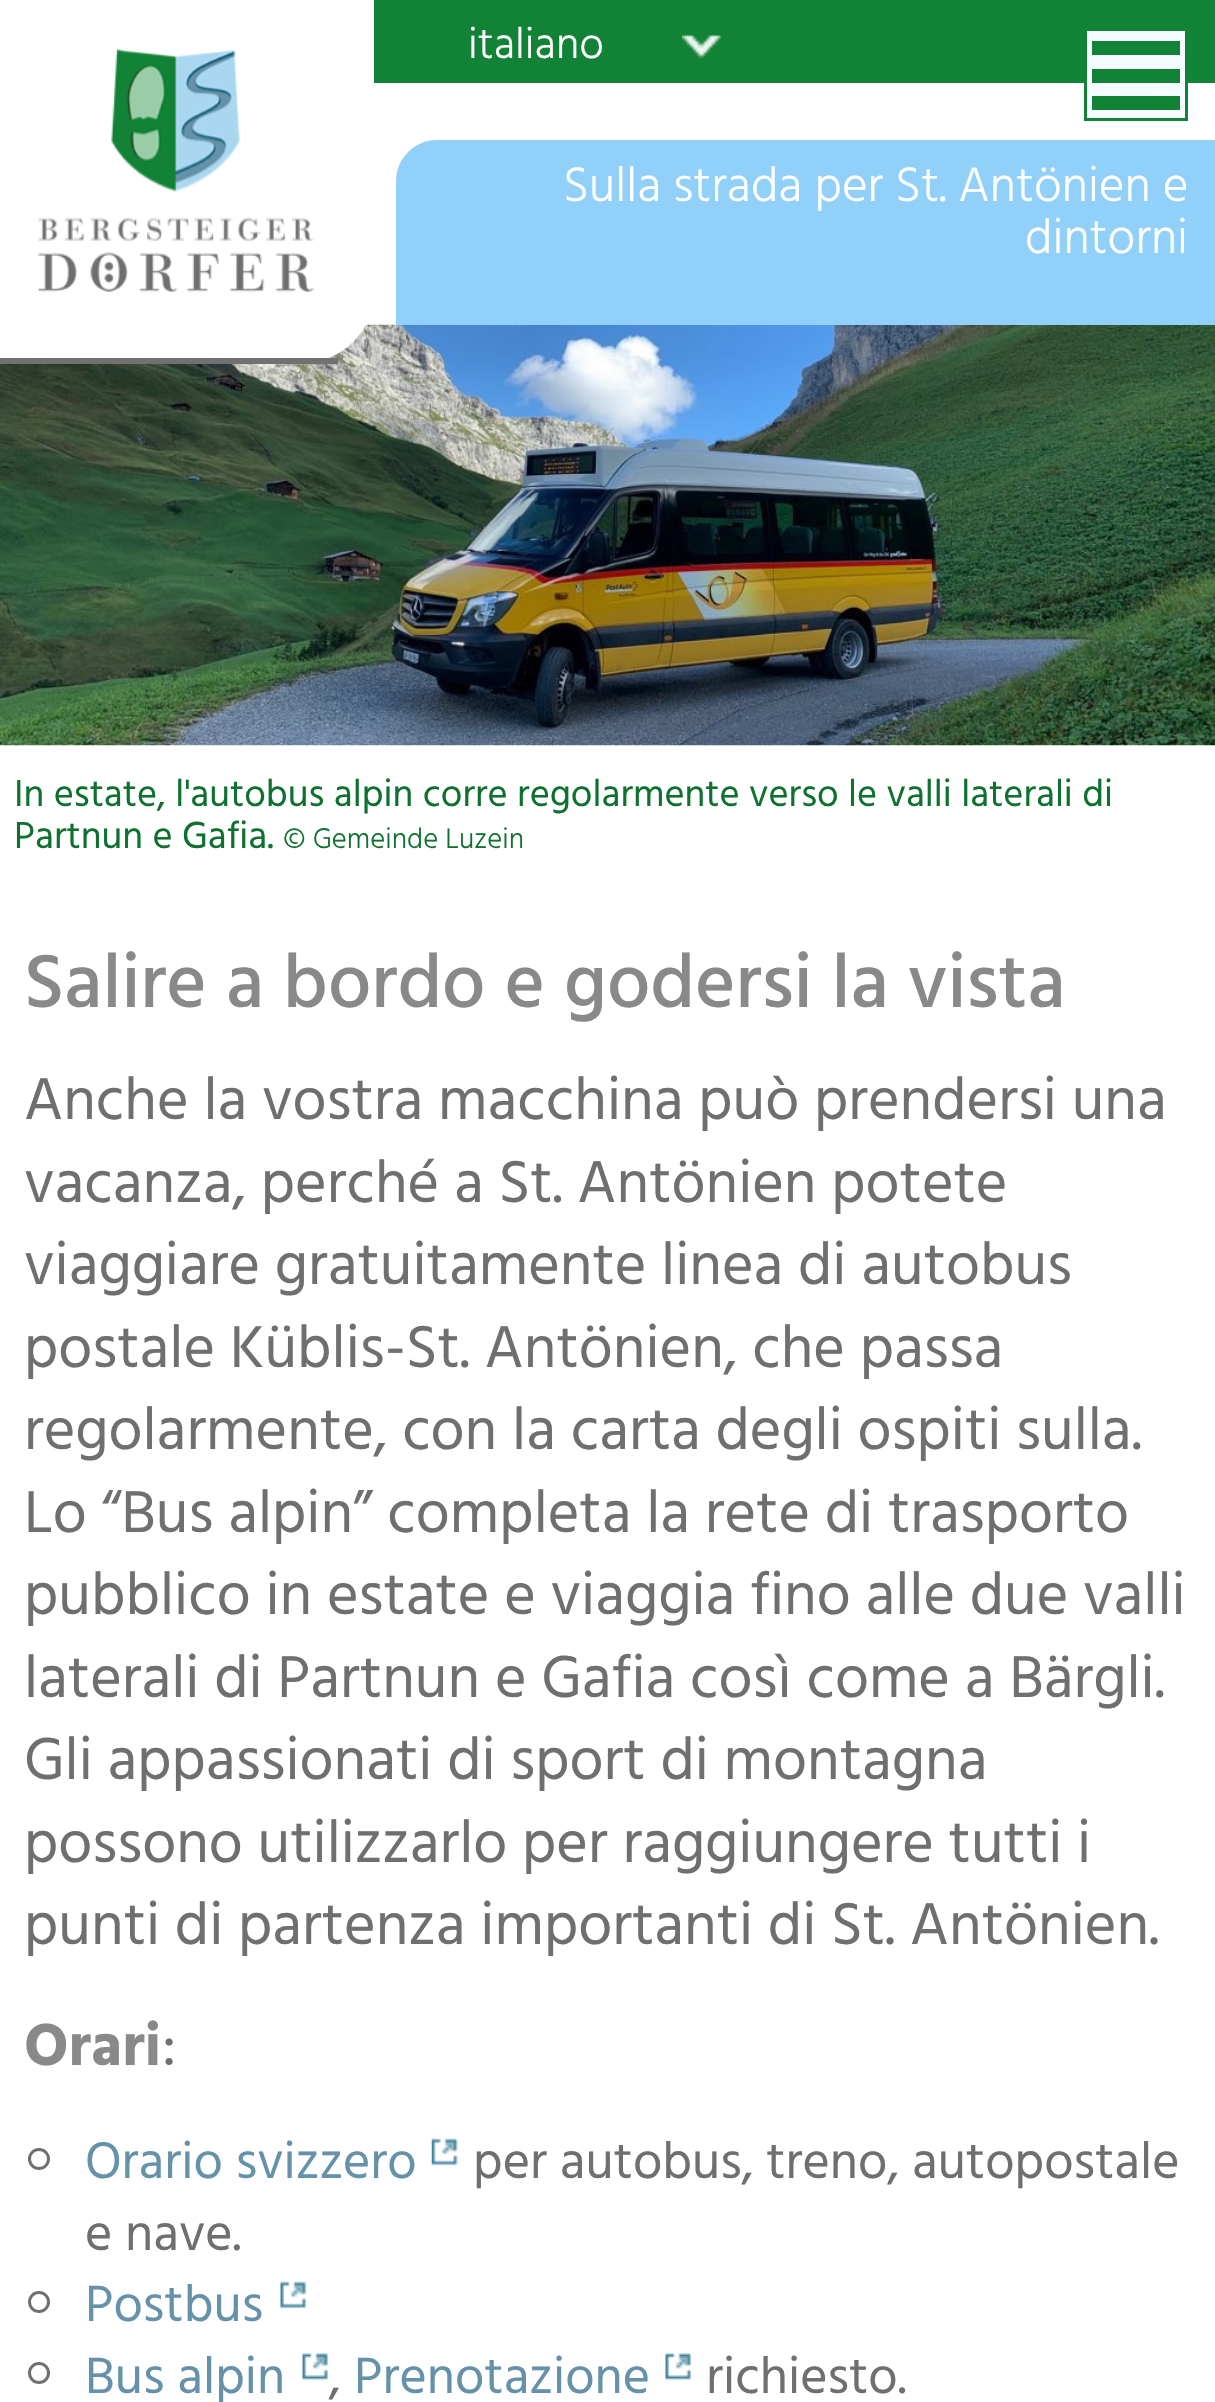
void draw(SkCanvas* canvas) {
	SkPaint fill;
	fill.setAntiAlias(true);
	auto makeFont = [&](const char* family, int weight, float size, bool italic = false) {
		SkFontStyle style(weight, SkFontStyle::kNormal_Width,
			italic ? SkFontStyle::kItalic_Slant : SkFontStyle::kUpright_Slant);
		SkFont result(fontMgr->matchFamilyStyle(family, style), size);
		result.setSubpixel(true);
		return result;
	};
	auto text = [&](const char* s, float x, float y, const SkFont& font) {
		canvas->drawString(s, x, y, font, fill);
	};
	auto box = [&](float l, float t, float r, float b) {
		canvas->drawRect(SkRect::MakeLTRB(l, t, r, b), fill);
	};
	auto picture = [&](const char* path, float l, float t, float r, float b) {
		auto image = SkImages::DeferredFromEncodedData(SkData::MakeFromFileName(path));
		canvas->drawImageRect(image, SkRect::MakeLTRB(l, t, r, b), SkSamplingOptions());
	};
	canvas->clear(0xFFFFFFFF);
	fill.setColor(0xFF128236);
	box(374, 0, 1215, 83);
	picture("image2.png", 0, 324, 1215, 746);
	fill.setColor(0xFFFFFFFF);
	canvas->drawPath(SkPathBuilder().moveTo(-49, 0).lineTo(374, 0).lineTo(374, 291).cubicTo(374, 331, 342, 363, 302, 363).lineTo(23, 363).cubicTo(-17, 363, -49, 331, -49, 291).close().detach(), fill);
	fill.setColor(0xFF717171);
	box(0, 358, 338, 364);
	picture("image0.png", 38, 49, 314, 292);
	picture("image1.png", 682, 35, 721, 58);
	fill.setColor(0xFFF5FBFE);
	canvas->drawRect(SkRect::MakeLTRB(1085.5f, 29.5f, 1186.5f, 119.5f), fill);
	fill.setStyle(SkPaint::kStroke_Style);
	fill.setStrokeWidth(3);
	fill.setColor(0xFF128236);
	canvas->drawRect(SkRect::MakeLTRB(1085.5f, 29.5f, 1186.5f, 119.5f), fill);
	fill.setStyle(SkPaint::kFill_Style);
	box(1092, 41, 1180, 55);
	box(1092, 69, 1180, 83);
	box(1092, 96, 1180, 110);
	fill.setColor(0xFF91D0F8);
	canvas->drawPath(SkPathBuilder().moveTo(437, 140).lineTo(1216, 140).lineTo(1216, 325).lineTo(396, 325).lineTo(396, 181).cubicTo(396, 158.5f, 414.5f, 140, 437, 140).close().detach(), fill);
	fill.setStyle(SkPaint::kStroke_Style);
	fill.setColor(0xFF6F6F6F);
	canvas->drawCircle(39, 2159, 9.5f, fill);
	picture("image3.png", 431, 2138, 458, 2166);
	canvas->drawCircle(39, 2302, 9.5f, fill);
	picture("image4.png", 280, 2281, 307, 2309);
	canvas->drawCircle(39, 2373, 9.5f, fill);
	picture("image5.png", 302, 2353, 329, 2380);
	picture("image5.png", 665, 2353, 692, 2380);
	auto font1 = makeFont("Hind Guntur", 300, 44);
	fill.setStyle(SkPaint::kFill_Style);
	fill.setColor(0xFFFFFFFF);
	text("italiano", 468, 58, font1);
	auto font2 = makeFont("Hind Guntur", 300, 49.5f);
	text("Sulla strada per St. Antönien e", 563, 201, font2);
	text("dintorni", 1025, 253, font2);
	auto font3 = makeFont("Hind Guntur", 400, 38.5f);
	fill.setColor(0xFF0F712F);
	text("In estate, l'autobus alpin corre regolarmente verso le valli laterali di", 14, 806, font3);
	text("Partnun e Gafia.", 14, 848, font3);
	auto font4 = makeFont("Hind Guntur", 300, 29);
	text("© Gemeinde Luzein", 283, 848, font4);
	auto font5 = makeFont("Hind Guntur", 500, 77);
	fill.setColor(0xFF898989);
	text("Salire a bordo e godersi la vista", 24, 1007, font5);
	auto font6 = makeFont("Hind Guntur", 400, 60.5f);
	fill.setColor(0xFF6F6F6F);
	text("Anche la vostra macchina può prendersi una", 24, 1119, font6);
	text("vacanza, perché a St. Antönien potete", 24, 1202, font6);
	text("viaggiare gratuitamente linea di autobus", 24, 1284, font6);
	text("postale Küblis-St. Antönien, che passa", 24, 1367, font6);
	text("regolarmente, con la carta degli ospiti sulla.", 24, 1449, font6);
	text("Lo “Bus alpin” completa la rete di trasporto", 24, 1532, font6);
	text("pubblico in estate e viaggia fino alle due valli", 24, 1614, font6);
	text("laterali di Partnun e Gafia così come a Bärgli.", 24, 1697, font6);
	text("Gli appassionati di sport di montagna", 24, 1779, font6);
	text("possono utilizzarlo per raggiungere tutti i", 24, 1862, font6);
	text("punti di partenza importanti di St. Antönien.", 24, 1944, font6);
	auto font7 = makeFont("Hind Guntur", 700, 60.5f);
	fill.setColor(0xFF898989);
	text("Orari", 24, 2065, font7);
	fill.setColor(0xFF6F6F6F);
	text(":", 162, 2065, font6);
	auto font8 = makeFont("Hind Guntur", 400, 52.25f);
	fill.setColor(0xFF6692A9);
	text("Orario svizzero", 85, 2178, font8);
	fill.setColor(0xFF6F6F6F);
	text("per autobus, treno, autopostale", 473, 2178, font8);
	text("e nave.", 85, 2250, font8);
	fill.setColor(0xFF6692A9);
	text("Postbus", 85, 2321, font8);
	text("Bus alpin", 85, 2393, font8);
	text("Prenotazione", 354, 2393, font8);
	fill.setColor(0xFF6F6F6F);
	text("richiesto.", 706, 2393, font8);
	text(",", 329, 2393, font8);
}
